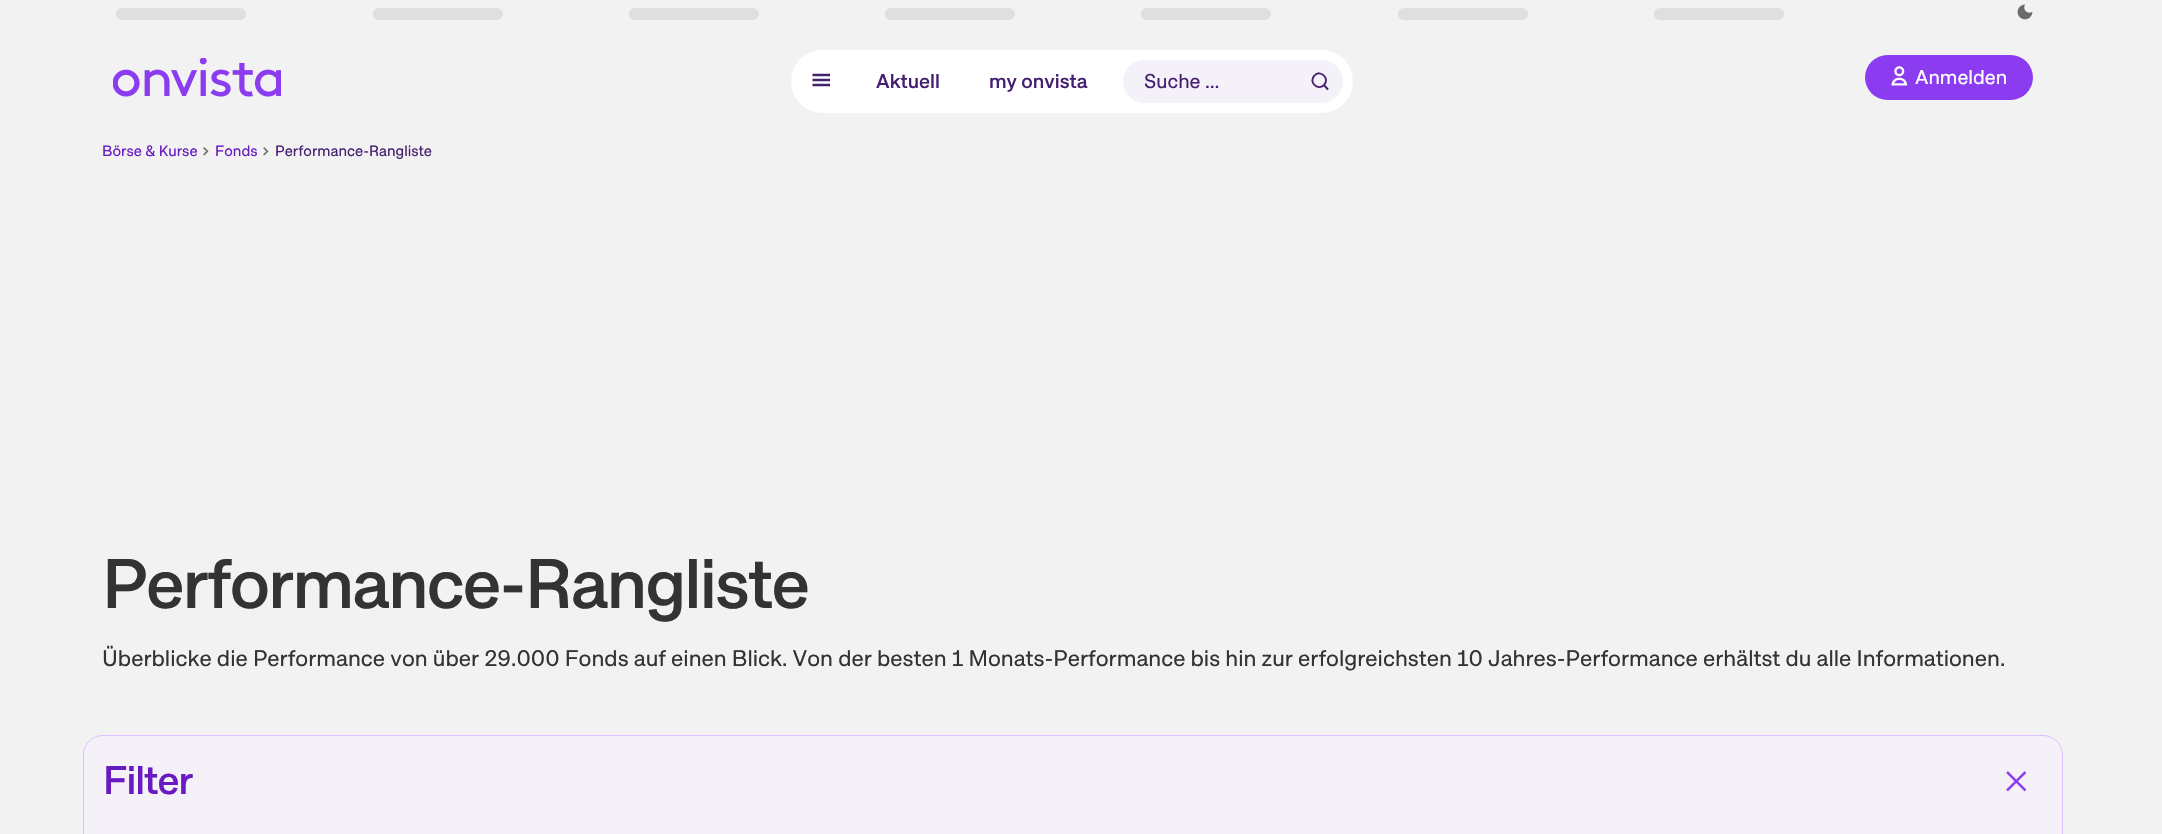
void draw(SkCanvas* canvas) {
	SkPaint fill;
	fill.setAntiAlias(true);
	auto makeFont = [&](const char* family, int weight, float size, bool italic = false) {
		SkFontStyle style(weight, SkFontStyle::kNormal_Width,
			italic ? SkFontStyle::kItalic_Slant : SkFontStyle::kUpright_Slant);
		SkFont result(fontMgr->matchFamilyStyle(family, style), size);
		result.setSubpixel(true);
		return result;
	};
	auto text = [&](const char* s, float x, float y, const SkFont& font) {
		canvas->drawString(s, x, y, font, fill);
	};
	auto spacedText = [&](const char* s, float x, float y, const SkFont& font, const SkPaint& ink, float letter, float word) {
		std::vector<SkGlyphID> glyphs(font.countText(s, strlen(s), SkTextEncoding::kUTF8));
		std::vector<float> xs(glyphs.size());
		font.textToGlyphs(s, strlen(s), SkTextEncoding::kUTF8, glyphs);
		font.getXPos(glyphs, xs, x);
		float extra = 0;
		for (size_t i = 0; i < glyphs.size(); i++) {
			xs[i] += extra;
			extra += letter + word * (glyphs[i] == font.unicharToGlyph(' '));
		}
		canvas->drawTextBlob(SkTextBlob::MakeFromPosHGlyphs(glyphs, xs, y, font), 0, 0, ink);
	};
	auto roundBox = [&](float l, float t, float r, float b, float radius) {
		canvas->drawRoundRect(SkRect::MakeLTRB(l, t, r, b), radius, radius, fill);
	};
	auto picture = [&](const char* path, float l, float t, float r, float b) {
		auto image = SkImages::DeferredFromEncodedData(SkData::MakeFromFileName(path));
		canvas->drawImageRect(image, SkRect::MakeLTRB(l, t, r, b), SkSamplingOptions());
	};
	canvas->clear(0xFFF2F2F2);
	fill.setColor(0xFFDFDFDF);
	roundBox(116, 8, 246, 20, 6);
	roundBox(373, 8, 503, 20, 6);
	roundBox(629, 8, 759, 20, 6);
	roundBox(885, 8, 1015, 20, 6);
	roundBox(1141, 8, 1271, 20, 6);
	roundBox(1398, 8, 1528, 20, 6);
	roundBox(1654, 8, 1784, 20, 6);
	picture("image0.png", 2017, 4, 2033, 20);
	picture("image1.png", 113, 58, 281, 97);
	fill.setColor(0xFFFFFFFF);
	roundBox(791, 50, 1353, 113, 31.5f);
	picture("image2.png", 812, 73, 830, 87);
	fill.setColor(0xFFF5F1F9);
	roundBox(1123, 60, 1343, 103, 21.5f);
	fill.setStyle(SkPaint::kStroke_Style);
	fill.setStrokeWidth(1.9f);
	fill.setStrokeCap(SkPaint::kSquare_Cap);
	fill.setColor(0xFF451F70);
	canvas->drawPath(SkPathBuilder().moveTo(1327.5f, 89).lineTo(1324, 85).moveTo(1324, 85).cubicTo(1330.5f, 78.5f, 1320, 69, 1314.5f, 75.5f).cubicTo(1308, 82, 1317.5f, 91, 1324, 85).close().detach(), fill);
	fill.setStyle(SkPaint::kFill_Style);
	fill.setColor(0xFF8C3CF0);
	roundBox(1865, 55, 2033, 100, 22.5f);
	picture("image3.png", 1891, 66, 1908, 86);
	picture("image4.png", 203, 147, 209, 156);
	picture("image4.png", 263, 147, 269, 156);
	fill.setColor(0xFFF5F1F9);
	canvas->drawRoundRect(SkRect::MakeLTRB(83.5f, 735.5f, 2062.5f, 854.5f), 19.5f, 19.5f, fill);
	fill.setStyle(SkPaint::kStroke_Style);
	fill.setStrokeWidth(1);
	fill.setStrokeCap(SkPaint::kButt_Cap);
	fill.setColor(0xFFDBC1FF);
	canvas->drawRoundRect(SkRect::MakeLTRB(83.5f, 735.5f, 2062.5f, 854.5f), 19.5f, 19.5f, fill);
	picture("image5.png", 2006, 771, 2027, 792);
	auto font1 = makeFont("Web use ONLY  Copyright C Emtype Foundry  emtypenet", 500, 20);
	fill.setStyle(SkPaint::kFill_Style);
	fill.setColor(0xFF451F70);
	text("Aktuell", 876, 88, font1);
	text("my onvista", 989, 88, font1);
	auto font2 = makeFont("Web use ONLY  Copyright C Emtype Foundry  emtypenet", 400, 20);
	text("Suche …", 1144, 88, font2);
	fill.setColor(0xFFFFFFFF);
	text("Anmelden", 1915, 84, font2);
	auto font3 = makeFont("Web use ONLY  Copyright C Emtype Foundry  emtypenet", 400, 15);
	fill.setColor(0xFF681BC1);
	text("Börse & Kurse", 102, 156, font3);
	text("Fonds", 215, 156, font3);
	fill.setColor(0xFF451F70);
	text("Performance-Rangliste", 275, 156, font3);
	auto font4 = makeFont("Web use ONLY  Copyright C Emtype Foundry  emtypenet", 500, 70);
	fill.setColor(0xFF333333);
	spacedText("Performance-Rangliste", 102, 608, font4, fill, -1.75f, 0);
	auto font5 = makeFont("Web use ONLY  Copyright C Emtype Foundry  emtypenet", 400, 22.5f);
	text("Überblicke die Performance von über 29.000 Fonds auf einen Blick. Von der besten 1 Monats-Performance bis hin zur erfolgreichsten 10 Jahres-Performance erhältst du alle Informationen.", 102, 666, font5);
	auto font6 = makeFont("Web use ONLY  Copyright C Emtype Foundry  emtypenet", 500, 40);
	fill.setColor(0xFF681BC1);
	spacedText("Filter", 103, 794, font6, fill, -1, 0);
}
